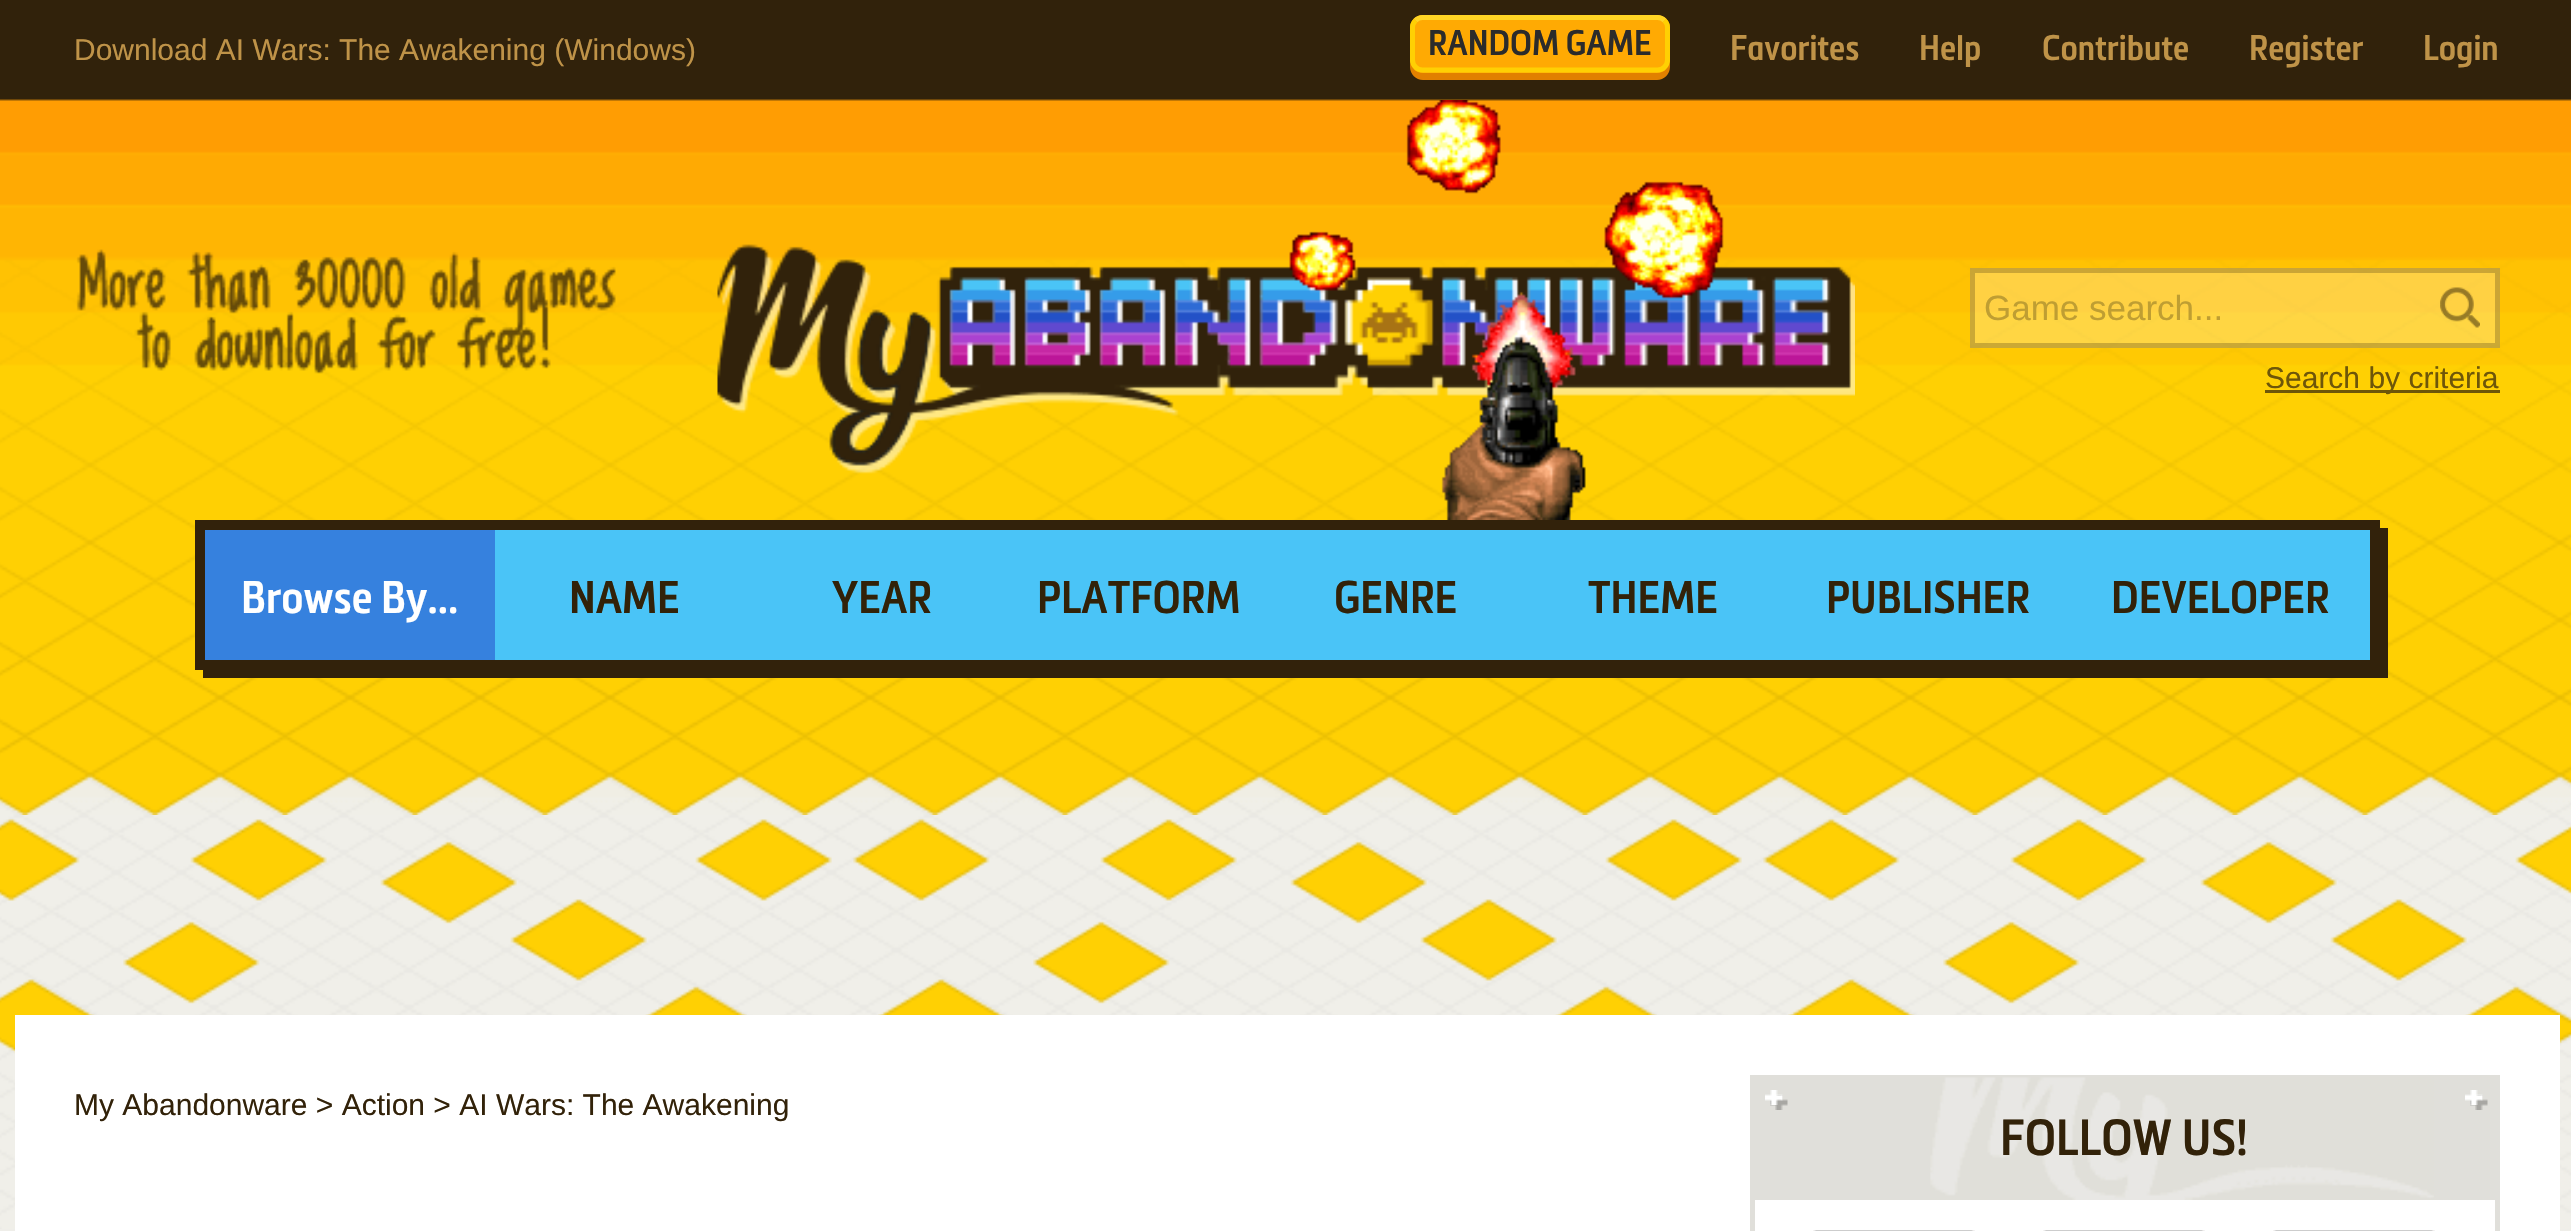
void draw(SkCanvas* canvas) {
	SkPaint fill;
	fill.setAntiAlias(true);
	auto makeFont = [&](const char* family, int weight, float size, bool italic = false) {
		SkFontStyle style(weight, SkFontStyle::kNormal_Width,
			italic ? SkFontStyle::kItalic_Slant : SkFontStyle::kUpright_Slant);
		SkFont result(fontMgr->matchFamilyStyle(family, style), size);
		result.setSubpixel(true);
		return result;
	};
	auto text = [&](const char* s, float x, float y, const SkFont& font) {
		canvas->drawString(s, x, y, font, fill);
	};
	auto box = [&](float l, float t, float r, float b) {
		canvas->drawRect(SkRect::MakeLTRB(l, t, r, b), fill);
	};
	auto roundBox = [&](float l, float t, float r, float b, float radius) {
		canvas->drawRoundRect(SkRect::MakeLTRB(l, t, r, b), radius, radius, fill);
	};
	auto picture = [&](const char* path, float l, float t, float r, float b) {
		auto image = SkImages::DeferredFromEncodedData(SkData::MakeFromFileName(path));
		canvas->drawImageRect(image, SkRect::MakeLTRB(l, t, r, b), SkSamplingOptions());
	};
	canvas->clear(0xFFEFEEE9);
	picture("image0.png", 0, 0, 2571, 1229);
	fill.setColor(0xFFE18000);
	canvas->drawPath(SkPathBuilder().moveTo(1410, 60).lineTo(1410, 67).cubicTo(1410, 74, 1416, 80, 1423, 80).lineTo(1657, 80).cubicTo(1664, 80, 1670, 74, 1670, 67).lineTo(1670, 60).cubicTo(1670, 67, 1664, 72, 1658, 72).lineTo(1422, 72).cubicTo(1416, 72, 1410, 67, 1410, 60).close().detach(), fill);
	fill.setColor(0xFFFFAA03);
	roundBox(1410, 15, 1670, 73, 13);
	fill.setStyle(SkPaint::kStroke_Style);
	fill.setStrokeWidth(5);
	fill.setColor(0xFFFFD525);
	canvas->drawPath(SkPathBuilder().moveTo(1415.5f, 20.5f).cubicTo(1417.5f, 18.5f, 1420, 17.5f, 1422.5f, 17.5f).lineTo(1657.5f, 17.5f).cubicTo(1660, 17.5f, 1662.5f, 18.5f, 1664.5f, 20.5f).detach(), fill);
	fill.setColor(0xFFFFD003);
	canvas->drawPath(SkPathBuilder().moveTo(1664.5f, 20.5f).cubicTo(1666.5f, 22.5f, 1667.5f, 25, 1667.5f, 27.5f).lineTo(1667.5f, 60).cubicTo(1667.5f, 62.5f, 1666.5f, 65, 1664.5f, 67).cubicTo(1662.5f, 69, 1660, 70, 1657.5f, 70).lineTo(1422.5f, 70).cubicTo(1420, 70, 1417.5f, 69, 1415.5f, 67).cubicTo(1413.5f, 65, 1412.5f, 62.5f, 1412.5f, 60).lineTo(1412.5f, 27.5f).cubicTo(1412.5f, 25, 1413.5f, 22.5f, 1415.5f, 20.5f).detach(), fill);
	picture("image1.png", 76, 249, 616, 374);
	picture("image2.png", 717, 100, 1855, 520);
	fill.setStyle(SkPaint::kFill_Style);
	fill.setColor(0x40FFFFFF);
	box(1970, 268, 2500, 348);
	fill.setStyle(SkPaint::kStroke_Style);
	fill.setColor(0x4031220B);
	canvas->drawRect(SkRect::MakeLTRB(1972.5f, 270.5f, 2497.5f, 345.5f), fill);
	picture("image3.png", 2440, 287, 2480, 328);
	fill.setStyle(SkPaint::kFill_Style);
	fill.setColor(0xB331220B);
	box(2265, 390, 2500, 393);
	fill.setColor(0xFF32220B);
	canvas->drawPath(SkPathBuilder().moveTo(203, 670).lineTo(203, 678).lineTo(2388, 678).lineTo(2388, 528).lineTo(2380, 528).lineTo(2380, 670).close().detach(), fill);
	fill.setColor(0xFF4AC4F7);
	box(495, 530, 2370, 660);
	fill.setStyle(SkPaint::kStroke_Style);
	fill.setStrokeWidth(10);
	fill.setColor(0xFF32220B);
	canvas->drawRect(SkRect::MakeLTRB(200, 525, 2375, 665), fill);
	fill.setStyle(SkPaint::kFill_Style);
	fill.setColor(0xFF3681DE);
	box(205, 530, 495, 660);
	fill.setColor(0xFFFFFFFF);
	box(15, 1015, 2560, 1231);
	fill.setColor(0xFFE0DFDA);
	box(1750, 1075, 2500, 1200);
	picture("image4.png", 1930, 1077, 2434, 1200);
	picture("image5.png", 1765, 1090, 1788, 1110);
	picture("image5.png", 2465, 1090, 2488, 1110);
	box(2495, 1200, 2500, 1231);
	box(1750, 1200, 1755, 1231);
	picture("image6.png", 1813, 1230, 1975, 1231);
	picture("image6.png", 2043, 1230, 2205, 1231);
	picture("image6.png", 2273, 1230, 2435, 1231);
	auto font1 = makeFont("Liberation Sans", 400, 30);
	fill.setColor(0xFFBF9348);
	text("Download AI Wars: The Awakening (Windows)", 74, 60, font1);
	auto font2 = makeFont("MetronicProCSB", 400, 35);
	fill.setColor(0xFF2B2B2B);
	text("RANDOM GAME", 1428, 55, font2);
	fill.setColor(0xFFBF9348);
	text("Favorites", 1730, 60, font2);
	text("Help", 1919, 60, font2);
	text("Contribute", 2042, 60, font2);
	text("Register", 2249, 60, font2);
	text("Login", 2423, 60, font2);
	auto font3 = makeFont("Liberation Sans", 400, 35);
	fill.setColor(0xFFBF9E32);
	text("Game search...", 1984, 320, font3);
	fill.setColor(0xFF6E5609);
	text("Search by criteria", 2265, 388, font1);
	auto font4 = makeFont("MetronicProCSB", 400, 45);
	fill.setColor(0xFFFFFFFF);
	text("Browse By...", 241, 613, font4);
	fill.setColor(0xFF322209);
	text("NAME", 569, 613, font4);
	text("YEAR", 832, 613, font4);
	text("PLATFORM", 1037, 613, font4);
	text("GENRE", 1334, 613, font4);
	text("THEME", 1588, 613, font4);
	text("PUBLISHER", 1826, 613, font4);
	text("DEVELOPER", 2111, 613, font4);
	text("My Abandonware > Action > AI Wars: The Awakening", 74, 1115, font1);
	auto font5 = makeFont("MetronicProCSB", 400, 50);
	text("FOLLOW US!", 2000, 1155, font5);
}
